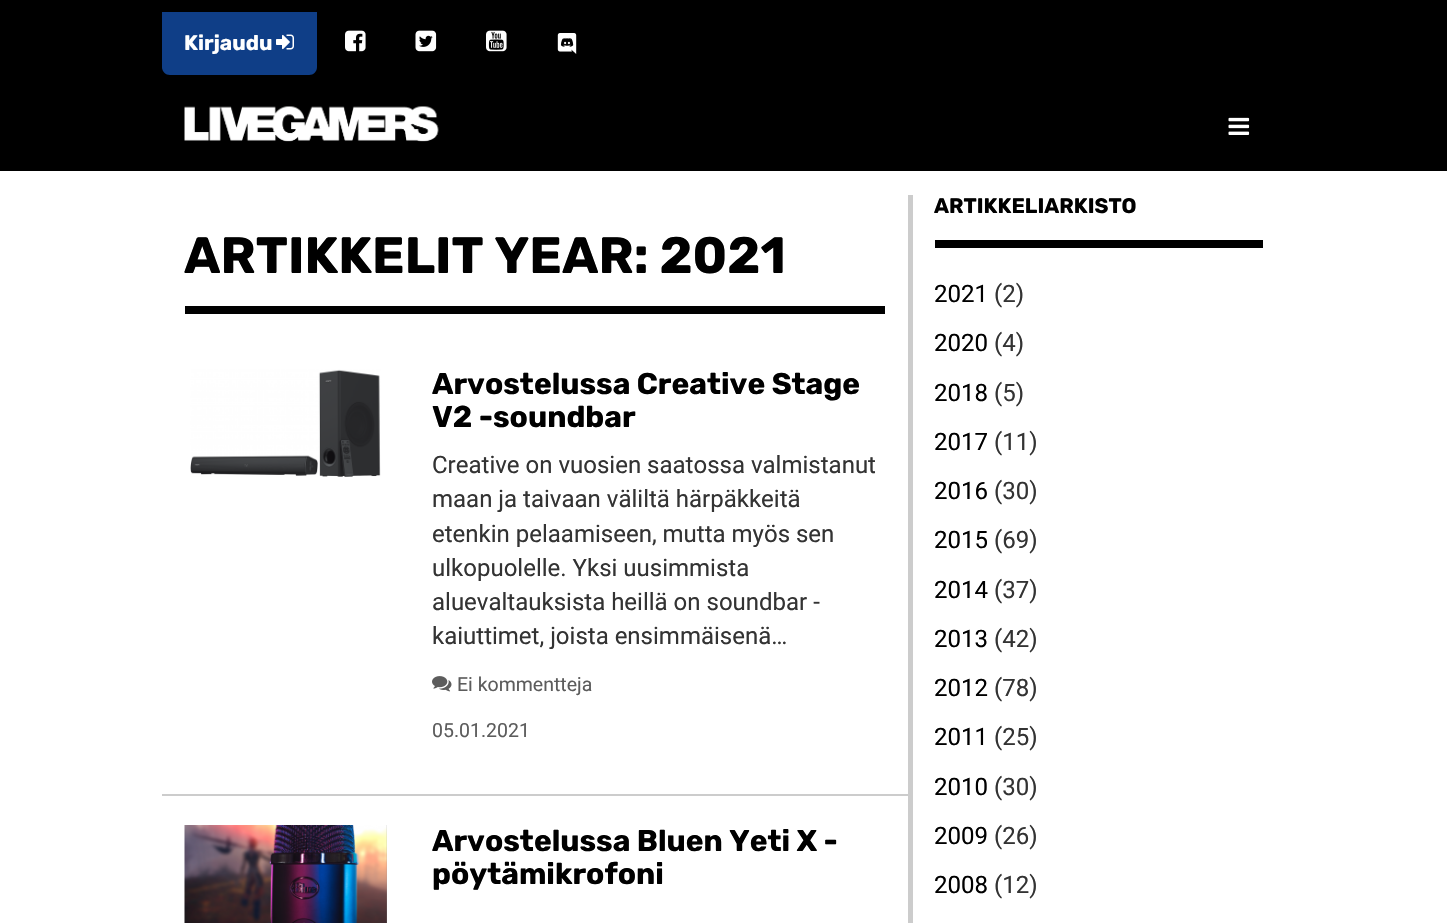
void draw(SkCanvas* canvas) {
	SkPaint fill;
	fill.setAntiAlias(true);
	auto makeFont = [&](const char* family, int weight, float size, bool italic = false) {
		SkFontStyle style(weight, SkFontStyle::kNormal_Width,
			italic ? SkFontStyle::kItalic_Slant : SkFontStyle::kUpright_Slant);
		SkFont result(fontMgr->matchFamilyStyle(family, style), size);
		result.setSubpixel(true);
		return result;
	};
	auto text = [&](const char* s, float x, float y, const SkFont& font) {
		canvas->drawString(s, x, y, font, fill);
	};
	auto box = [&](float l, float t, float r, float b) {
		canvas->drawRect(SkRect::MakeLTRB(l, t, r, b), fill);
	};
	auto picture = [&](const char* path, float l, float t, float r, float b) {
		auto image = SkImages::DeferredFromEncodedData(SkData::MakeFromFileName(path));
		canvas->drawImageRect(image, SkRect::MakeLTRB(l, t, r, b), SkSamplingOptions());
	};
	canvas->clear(0xFFFFFFFF);
	fill.setColor(0xFF000000);
	box(0, 0, 1447, 171);
	fill.setColor(0xFF0F3E87);
	canvas->drawPath(SkPathBuilder().moveTo(162, 12).lineTo(317, 12).lineTo(317, 67).cubicTo(317, 71.5f, 313.5f, 75, 309, 75).lineTo(170, 75).cubicTo(165.5f, 75, 162, 71.5f, 162, 67).close().detach(), fill);
	picture("image0.png", 276, 34, 294, 50);
	picture("image1.png", 345, 30, 366, 52);
	picture("image2.png", 415, 30, 437, 52);
	picture("image3.png", 486, 30, 507, 52);
	picture("image4.png", 557, 33, 577, 54);
	picture("image5.png", 184, 106, 439, 142);
	picture("image6.png", 1228, 117, 1250, 135);
	fill.setColor(0xFFCCCCCC);
	box(908, 195, 913, 923);
	fill.setColor(0xFF000000);
	box(185, 306, 885, 314);
	fill.setColor(0xFFCCCCCC);
	box(162, 794, 908, 796);
	picture("image7.png", 190, 369, 381, 477);
	picture("image8.png", 432, 676, 452, 692);
	picture("image9.png", 184, 825, 387, 923);
	fill.setColor(0xFF000000);
	box(935, 240, 1263, 248);
	auto font1 = makeFont("Rubik", 700, 21);
	fill.setColor(0xFFFFFFFF);
	text("Kirjaudu", 184, 50, font1);
	auto font2 = makeFont("Rubik", 700, 51);
	fill.setColor(0xFF000000);
	text("ARTIKKELIT YEAR: 2021", 184, 273, font2);
	auto font3 = makeFont("Rubik", 700, 30);
	text("Arvostelussa Creative Stage", 432, 394, font3);
	text("V2 -soundbar", 432, 427, font3);
	auto font4 = makeFont("Roboto", 400, 24);
	fill.setColor(0xFF333333);
	text("Creative on vuosien saatossa valmistanut", 432, 473, font4);
	text("maan ja taivaan väliltä härpäkkeitä", 432, 507, font4);
	text("etenkin pelaamiseen, mutta myös sen", 432, 542, font4);
	text("ulkopuolelle. Yksi uusimmista", 432, 576, font4);
	text("aluevaltauksista heillä on soundbar -", 432, 610, font4);
	text("kaiuttimet, joista ensimmäisenä…", 432, 644, font4);
	auto font5 = makeFont("Roboto", 400, 19.5f);
	fill.setColor(0xFF5C5C5C);
	text("Ei kommentteja", 457, 691, font5);
	text("05.01.2021", 432, 737, font5);
	fill.setColor(0xFF000000);
	text("Arvostelussa Bluen Yeti X -", 432, 851, font3);
	text("pöytämikrofoni", 432, 884, font3);
	text("ARTIKKELIARKISTO", 934, 213, font1);
	text("2021", 934, 302, font4);
	fill.setColor(0xFF333333);
	text("(2)", 994, 302, font4);
	fill.setColor(0xFF000000);
	text("2020", 934, 351, font4);
	fill.setColor(0xFF333333);
	text("(4)", 994, 351, font4);
	fill.setColor(0xFF000000);
	text("2018", 934, 401, font4);
	fill.setColor(0xFF333333);
	text("(5)", 994, 401, font4);
	fill.setColor(0xFF000000);
	text("2017", 934, 450, font4);
	fill.setColor(0xFF333333);
	text("(11)", 994, 450, font4);
	fill.setColor(0xFF000000);
	text("2016", 934, 499, font4);
	fill.setColor(0xFF333333);
	text("(30)", 994, 499, font4);
	fill.setColor(0xFF000000);
	text("2015", 934, 548, font4);
	fill.setColor(0xFF333333);
	text("(69)", 994, 548, font4);
	fill.setColor(0xFF000000);
	text("2014", 934, 598, font4);
	fill.setColor(0xFF333333);
	text("(37)", 994, 598, font4);
	fill.setColor(0xFF000000);
	text("2013", 934, 647, font4);
	fill.setColor(0xFF333333);
	text("(42)", 994, 647, font4);
	fill.setColor(0xFF000000);
	text("2012", 934, 696, font4);
	fill.setColor(0xFF333333);
	text("(78)", 994, 696, font4);
	fill.setColor(0xFF000000);
	text("2011", 934, 745, font4);
	fill.setColor(0xFF333333);
	text("(25)", 994, 745, font4);
	fill.setColor(0xFF000000);
	text("2010", 934, 795, font4);
	fill.setColor(0xFF333333);
	text("(30)", 994, 795, font4);
	fill.setColor(0xFF000000);
	text("2009", 934, 844, font4);
	fill.setColor(0xFF333333);
	text("(26)", 994, 844, font4);
	fill.setColor(0xFF000000);
	text("2008", 934, 893, font4);
	fill.setColor(0xFF333333);
	text("(12)", 994, 893, font4);
}
